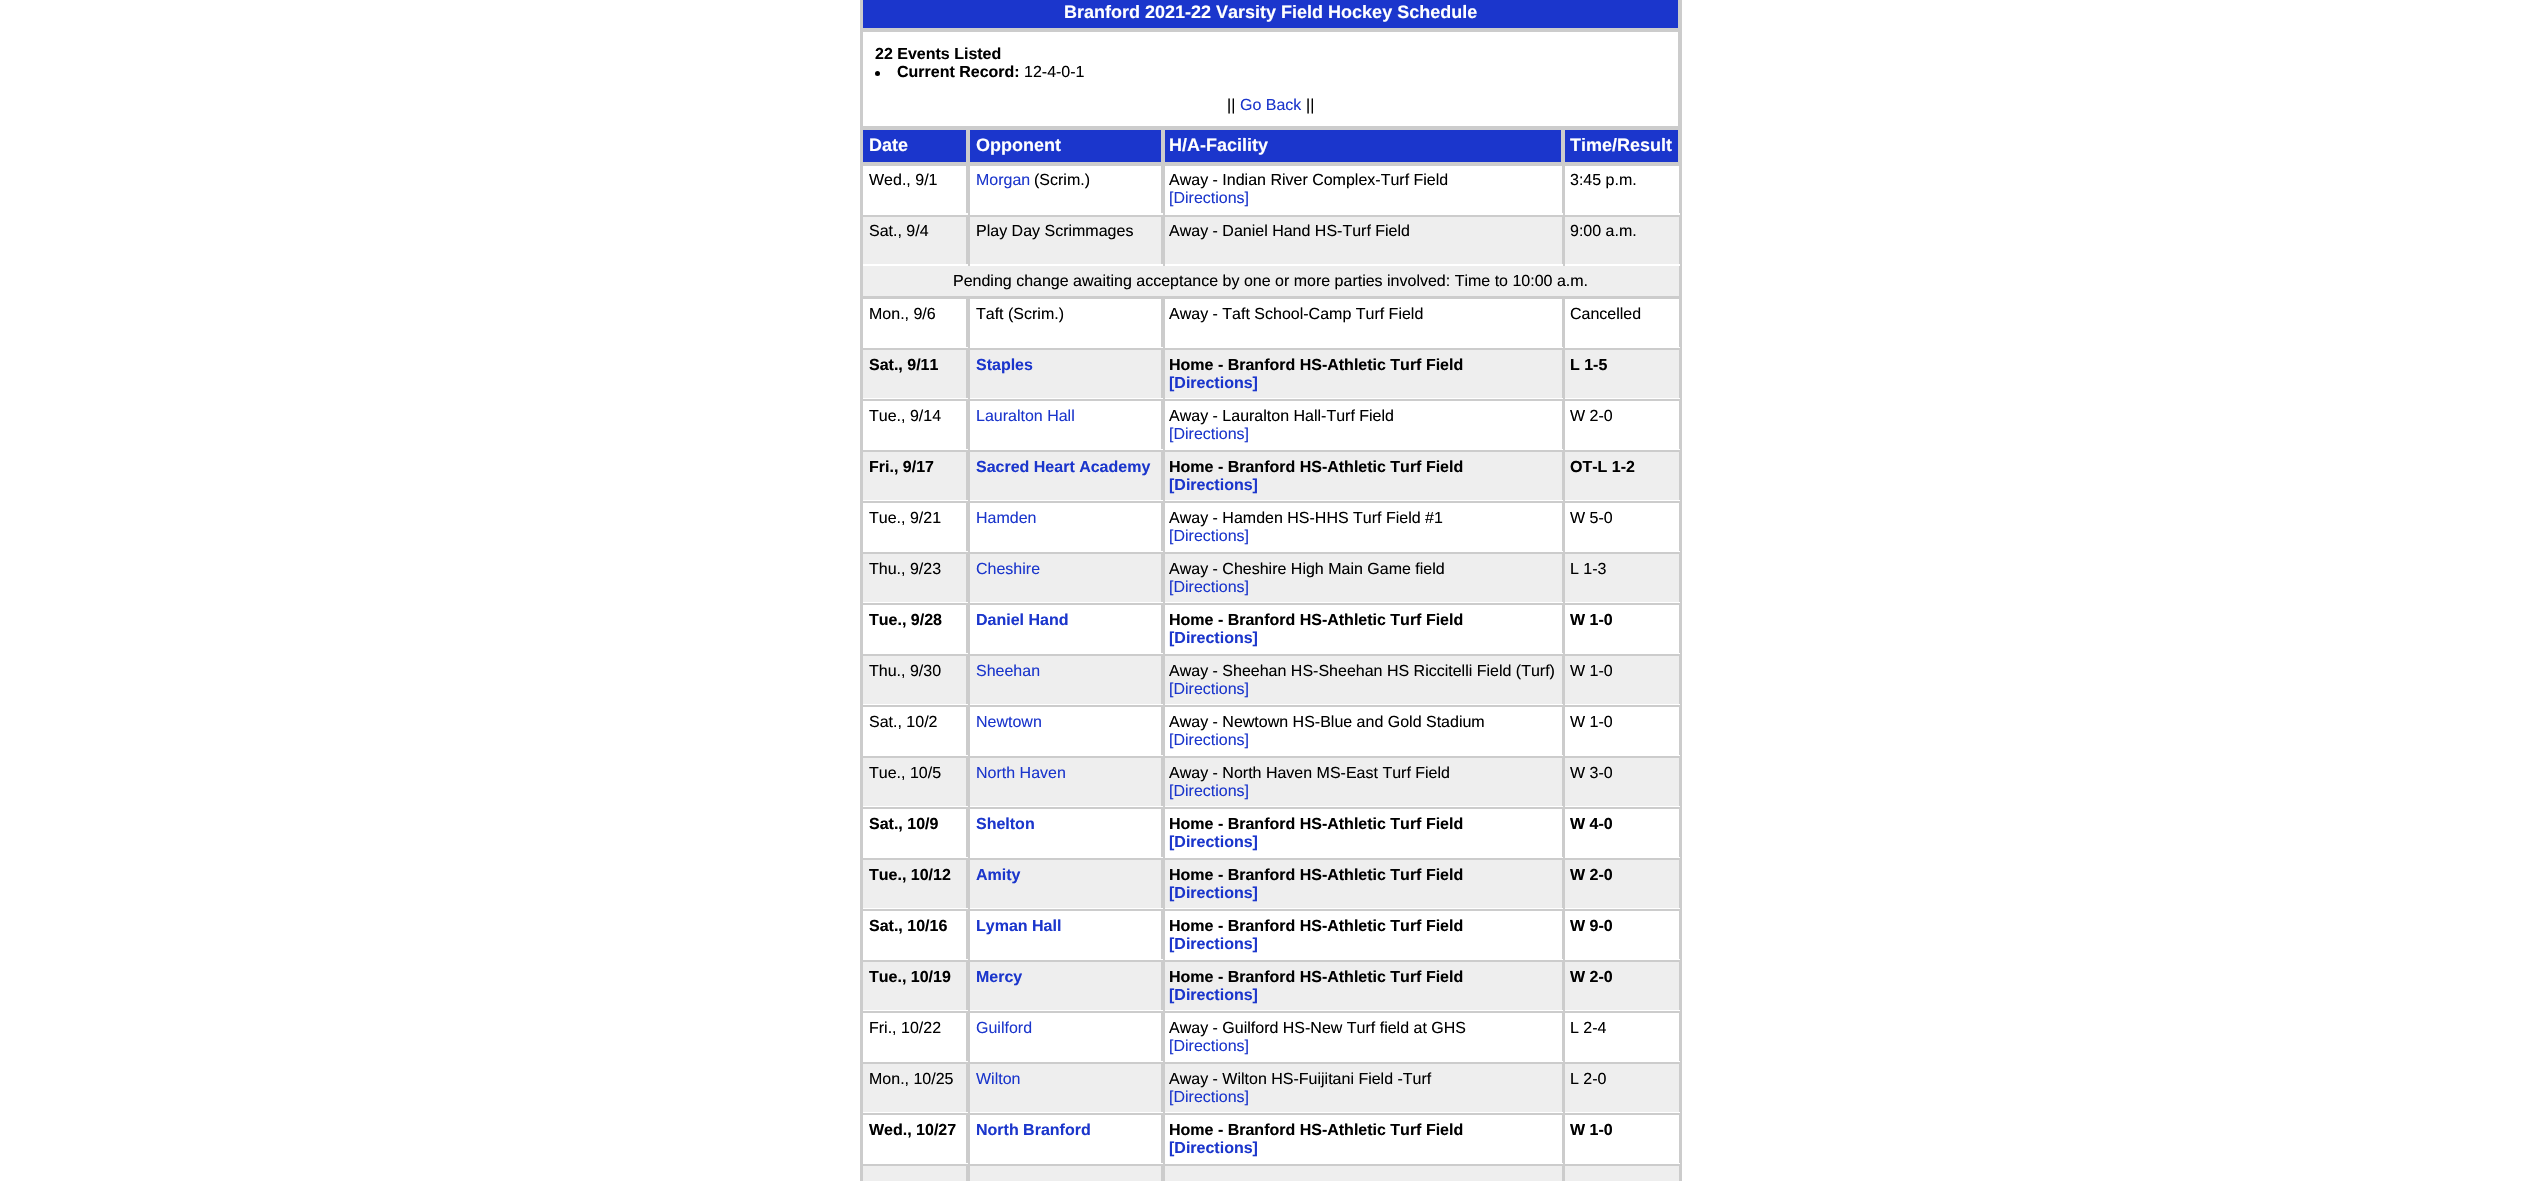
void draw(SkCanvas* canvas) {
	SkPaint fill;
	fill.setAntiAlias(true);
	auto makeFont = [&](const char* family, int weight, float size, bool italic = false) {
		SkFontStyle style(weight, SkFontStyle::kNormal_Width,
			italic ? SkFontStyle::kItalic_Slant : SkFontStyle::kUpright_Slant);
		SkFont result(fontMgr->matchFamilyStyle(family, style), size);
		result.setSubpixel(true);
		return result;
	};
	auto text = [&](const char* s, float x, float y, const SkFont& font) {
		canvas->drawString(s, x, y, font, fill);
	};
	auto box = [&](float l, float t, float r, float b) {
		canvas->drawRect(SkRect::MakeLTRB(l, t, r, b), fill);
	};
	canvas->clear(0xFFFFFFFF);
	fill.setColor(0xFFCCCCCC);
	box(860, 0, 1682, 1181);
	fill.setColor(0xFF1B36CC);
	box(863, 0, 1678, 28);
	fill.setColor(0xFFFFFFFF);
	box(863, 32, 1678, 126);
	fill.setColor(0xFF000000);
	canvas->drawCircle(877.5f, 73.5f, 2.5f, fill);
	fill.setColor(0xFF1B36CC);
	box(863, 130, 966, 162);
	box(970, 130, 1161, 162);
	box(1165, 130, 1561, 162);
	box(1565, 130, 1678, 162);
	fill.setColor(0xFFFFFFFF);
	box(863, 166, 1679, 213);
	fill.setColor(0xFFCCCCCC);
	box(966, 164, 968, 215);
	fill.setColor(0xFFFFFFFF);
	box(861, 213, 968, 215);
	fill.setColor(0xFFCCCCCC);
	box(861, 213, 863, 215);
	box(1161, 164, 1163, 215);
	fill.setColor(0xFFFFFFFF);
	box(968, 213, 1163, 215);
	fill.setColor(0xFFCCCCCC);
	box(968, 164, 970, 215);
	box(1562, 164, 1563, 215);
	fill.setColor(0xFFFFFFFF);
	box(1163, 213, 1680, 215);
	fill.setColor(0xFFCCCCCC);
	box(1163, 164, 1165, 215);
	box(1563, 164, 1565, 215);
	fill.setColor(0xFFEEEEEE);
	box(863, 217, 1679, 264);
	fill.setColor(0xFFCCCCCC);
	box(966, 215, 968, 266);
	fill.setColor(0xFFFFFFFF);
	box(861, 264, 968, 266);
	fill.setColor(0xFFCCCCCC);
	box(861, 264, 863, 266);
	box(1161, 215, 1163, 266);
	fill.setColor(0xFFFFFFFF);
	box(968, 264, 1163, 266);
	fill.setColor(0xFFCCCCCC);
	box(968, 215, 970, 266);
	box(1562, 215, 1563, 266);
	fill.setColor(0xFFFFFFFF);
	box(1163, 264, 1680, 266);
	fill.setColor(0xFFCCCCCC);
	box(1163, 215, 1165, 266);
	box(1563, 215, 1565, 266);
	fill.setColor(0xFFEEEEEE);
	box(863, 266, 1679, 296);
	fill.setColor(0xFFFFFFFF);
	box(863, 299, 1679, 347);
	fill.setColor(0xFFCCCCCC);
	box(966, 297, 968, 348);
	fill.setColor(0xFFFFFFFF);
	box(861, 347, 968, 348);
	fill.setColor(0xFFCCCCCC);
	box(861, 347, 863, 348);
	box(1161, 297, 1163, 348);
	fill.setColor(0xFFFFFFFF);
	box(968, 347, 1163, 348);
	fill.setColor(0xFFCCCCCC);
	box(968, 297, 970, 348);
	box(1562, 297, 1563, 348);
	fill.setColor(0xFFFFFFFF);
	box(1163, 347, 1680, 348);
	fill.setColor(0xFFCCCCCC);
	box(1163, 297, 1165, 348);
	box(1563, 297, 1565, 348);
	fill.setColor(0xFFEEEEEE);
	box(863, 350, 1679, 398);
	fill.setColor(0xFFCCCCCC);
	box(966, 348, 968, 399);
	fill.setColor(0xFFFFFFFF);
	box(861, 398, 968, 399);
	fill.setColor(0xFFCCCCCC);
	box(861, 398, 863, 399);
	box(1161, 348, 1163, 399);
	fill.setColor(0xFFFFFFFF);
	box(968, 398, 1163, 399);
	fill.setColor(0xFFCCCCCC);
	box(968, 348, 970, 399);
	box(1562, 348, 1563, 399);
	fill.setColor(0xFFFFFFFF);
	box(1163, 398, 1680, 399);
	fill.setColor(0xFFCCCCCC);
	box(1163, 348, 1165, 399);
	box(1563, 348, 1565, 399);
	fill.setColor(0xFFFFFFFF);
	box(863, 401, 1679, 449);
	fill.setColor(0xFFCCCCCC);
	box(966, 399, 968, 450);
	fill.setColor(0xFFFFFFFF);
	box(861, 449, 968, 450);
	fill.setColor(0xFFCCCCCC);
	box(861, 449, 863, 450);
	box(1161, 399, 1163, 450);
	fill.setColor(0xFFFFFFFF);
	box(968, 449, 1163, 450);
	fill.setColor(0xFFCCCCCC);
	box(968, 399, 970, 450);
	box(1562, 399, 1563, 450);
	fill.setColor(0xFFFFFFFF);
	box(1163, 449, 1680, 450);
	fill.setColor(0xFFCCCCCC);
	box(1163, 399, 1165, 450);
	box(1563, 399, 1565, 450);
	fill.setColor(0xFFEEEEEE);
	box(863, 452, 1679, 500);
	fill.setColor(0xFFCCCCCC);
	box(966, 450, 968, 501);
	fill.setColor(0xFFFFFFFF);
	box(861, 500, 968, 501);
	fill.setColor(0xFFCCCCCC);
	box(861, 500, 863, 501);
	box(1161, 450, 1163, 501);
	fill.setColor(0xFFFFFFFF);
	box(968, 500, 1163, 501);
	fill.setColor(0xFFCCCCCC);
	box(968, 450, 970, 501);
	box(1562, 450, 1563, 501);
	fill.setColor(0xFFFFFFFF);
	box(1163, 500, 1680, 501);
	fill.setColor(0xFFCCCCCC);
	box(1163, 450, 1165, 501);
	box(1563, 450, 1565, 501);
	fill.setColor(0xFFFFFFFF);
	box(863, 503, 1679, 551);
	fill.setColor(0xFFCCCCCC);
	box(966, 501, 968, 552);
	fill.setColor(0xFFFFFFFF);
	box(861, 551, 968, 552);
	fill.setColor(0xFFCCCCCC);
	box(861, 551, 863, 552);
	box(1161, 501, 1163, 552);
	fill.setColor(0xFFFFFFFF);
	box(968, 551, 1163, 552);
	fill.setColor(0xFFCCCCCC);
	box(968, 501, 970, 552);
	box(1562, 501, 1563, 552);
	fill.setColor(0xFFFFFFFF);
	box(1163, 551, 1680, 552);
	fill.setColor(0xFFCCCCCC);
	box(1163, 501, 1165, 552);
	box(1563, 501, 1565, 552);
	fill.setColor(0xFFEEEEEE);
	box(863, 554, 1679, 602);
	fill.setColor(0xFFCCCCCC);
	box(966, 552, 968, 603);
	fill.setColor(0xFFFFFFFF);
	box(861, 602, 968, 603);
	fill.setColor(0xFFCCCCCC);
	box(861, 602, 863, 603);
	box(1161, 552, 1163, 603);
	fill.setColor(0xFFFFFFFF);
	box(968, 602, 1163, 603);
	fill.setColor(0xFFCCCCCC);
	box(968, 552, 970, 603);
	box(1562, 552, 1563, 603);
	fill.setColor(0xFFFFFFFF);
	box(1163, 602, 1680, 603);
	fill.setColor(0xFFCCCCCC);
	box(1163, 552, 1165, 603);
	box(1563, 552, 1565, 603);
	fill.setColor(0xFFFFFFFF);
	box(863, 605, 1679, 653);
	fill.setColor(0xFFCCCCCC);
	box(966, 603, 968, 654);
	fill.setColor(0xFFFFFFFF);
	box(861, 653, 968, 654);
	fill.setColor(0xFFCCCCCC);
	box(861, 653, 863, 654);
	box(1161, 603, 1163, 654);
	fill.setColor(0xFFFFFFFF);
	box(968, 653, 1163, 654);
	fill.setColor(0xFFCCCCCC);
	box(968, 603, 970, 654);
	box(1562, 603, 1563, 654);
	fill.setColor(0xFFFFFFFF);
	box(1163, 653, 1680, 654);
	fill.setColor(0xFFCCCCCC);
	box(1163, 603, 1165, 654);
	box(1563, 603, 1565, 654);
	fill.setColor(0xFFEEEEEE);
	box(863, 656, 1679, 704);
	fill.setColor(0xFFCCCCCC);
	box(966, 654, 968, 705);
	fill.setColor(0xFFFFFFFF);
	box(861, 704, 968, 705);
	fill.setColor(0xFFCCCCCC);
	box(861, 704, 863, 705);
	box(1161, 654, 1163, 705);
	fill.setColor(0xFFFFFFFF);
	box(968, 704, 1163, 705);
	fill.setColor(0xFFCCCCCC);
	box(968, 654, 970, 705);
	box(1562, 654, 1563, 705);
	fill.setColor(0xFFFFFFFF);
	box(1163, 704, 1680, 705);
	fill.setColor(0xFFCCCCCC);
	box(1163, 654, 1165, 705);
	box(1563, 654, 1565, 705);
	fill.setColor(0xFFFFFFFF);
	box(863, 707, 1679, 755);
	fill.setColor(0xFFCCCCCC);
	box(966, 705, 968, 756);
	fill.setColor(0xFFFFFFFF);
	box(861, 755, 968, 756);
	fill.setColor(0xFFCCCCCC);
	box(861, 755, 863, 756);
	box(1161, 705, 1163, 756);
	fill.setColor(0xFFFFFFFF);
	box(968, 755, 1163, 756);
	fill.setColor(0xFFCCCCCC);
	box(968, 705, 970, 756);
	box(1562, 705, 1563, 756);
	fill.setColor(0xFFFFFFFF);
	box(1163, 755, 1680, 756);
	fill.setColor(0xFFCCCCCC);
	box(1163, 705, 1165, 756);
	box(1563, 705, 1565, 756);
	fill.setColor(0xFFEEEEEE);
	box(863, 758, 1679, 806);
	fill.setColor(0xFFCCCCCC);
	box(966, 756, 968, 807);
	fill.setColor(0xFFFFFFFF);
	box(861, 806, 968, 807);
	fill.setColor(0xFFCCCCCC);
	box(861, 806, 863, 807);
	box(1161, 756, 1163, 807);
	fill.setColor(0xFFFFFFFF);
	box(968, 806, 1163, 807);
	fill.setColor(0xFFCCCCCC);
	box(968, 756, 970, 807);
	box(1562, 756, 1563, 807);
	fill.setColor(0xFFFFFFFF);
	box(1163, 806, 1680, 807);
	fill.setColor(0xFFCCCCCC);
	box(1163, 756, 1165, 807);
	box(1563, 756, 1565, 807);
	fill.setColor(0xFFFFFFFF);
	box(863, 809, 1679, 857);
	fill.setColor(0xFFCCCCCC);
	box(966, 807, 968, 858);
	fill.setColor(0xFFFFFFFF);
	box(861, 857, 968, 858);
	fill.setColor(0xFFCCCCCC);
	box(861, 857, 863, 858);
	box(1161, 807, 1163, 858);
	fill.setColor(0xFFFFFFFF);
	box(968, 857, 1163, 858);
	fill.setColor(0xFFCCCCCC);
	box(968, 807, 970, 858);
	box(1562, 807, 1563, 858);
	fill.setColor(0xFFFFFFFF);
	box(1163, 857, 1680, 858);
	fill.setColor(0xFFCCCCCC);
	box(1163, 807, 1165, 858);
	box(1563, 807, 1565, 858);
	fill.setColor(0xFFEEEEEE);
	box(863, 860, 1679, 908);
	fill.setColor(0xFFCCCCCC);
	box(966, 858, 968, 909);
	fill.setColor(0xFFFFFFFF);
	box(861, 908, 968, 909);
	fill.setColor(0xFFCCCCCC);
	box(861, 908, 863, 909);
	box(1161, 858, 1163, 909);
	fill.setColor(0xFFFFFFFF);
	box(968, 908, 1163, 909);
	fill.setColor(0xFFCCCCCC);
	box(968, 858, 970, 909);
	box(1562, 858, 1563, 909);
	fill.setColor(0xFFFFFFFF);
	box(1163, 908, 1680, 909);
	fill.setColor(0xFFCCCCCC);
	box(1163, 858, 1165, 909);
	box(1563, 858, 1565, 909);
	fill.setColor(0xFFFFFFFF);
	box(863, 911, 1679, 959);
	fill.setColor(0xFFCCCCCC);
	box(966, 909, 968, 960);
	fill.setColor(0xFFFFFFFF);
	box(861, 959, 968, 960);
	fill.setColor(0xFFCCCCCC);
	box(861, 959, 863, 960);
	box(1161, 909, 1163, 960);
	fill.setColor(0xFFFFFFFF);
	box(968, 959, 1163, 960);
	fill.setColor(0xFFCCCCCC);
	box(968, 909, 970, 960);
	box(1562, 909, 1563, 960);
	fill.setColor(0xFFFFFFFF);
	box(1163, 959, 1680, 960);
	fill.setColor(0xFFCCCCCC);
	box(1163, 909, 1165, 960);
	box(1563, 909, 1565, 960);
	fill.setColor(0xFFEEEEEE);
	box(863, 962, 1679, 1010);
	fill.setColor(0xFFCCCCCC);
	box(966, 960, 968, 1011);
	fill.setColor(0xFFFFFFFF);
	box(861, 1010, 968, 1011);
	fill.setColor(0xFFCCCCCC);
	box(861, 1010, 863, 1011);
	box(1161, 960, 1163, 1011);
	fill.setColor(0xFFFFFFFF);
	box(968, 1010, 1163, 1011);
	fill.setColor(0xFFCCCCCC);
	box(968, 960, 970, 1011);
	box(1562, 960, 1563, 1011);
	fill.setColor(0xFFFFFFFF);
	box(1163, 1010, 1680, 1011);
	fill.setColor(0xFFCCCCCC);
	box(1163, 960, 1165, 1011);
	box(1563, 960, 1565, 1011);
	fill.setColor(0xFFFFFFFF);
	box(863, 1013, 1679, 1061);
	fill.setColor(0xFFCCCCCC);
	box(966, 1011, 968, 1062);
	fill.setColor(0xFFFFFFFF);
	box(861, 1061, 968, 1062);
	fill.setColor(0xFFCCCCCC);
	box(861, 1061, 863, 1062);
	box(1161, 1011, 1163, 1062);
	fill.setColor(0xFFFFFFFF);
	box(968, 1061, 1163, 1062);
	fill.setColor(0xFFCCCCCC);
	box(968, 1011, 970, 1062);
	box(1562, 1011, 1563, 1062);
	fill.setColor(0xFFFFFFFF);
	box(1163, 1061, 1680, 1062);
	fill.setColor(0xFFCCCCCC);
	box(1163, 1011, 1165, 1062);
	box(1563, 1011, 1565, 1062);
	fill.setColor(0xFFEEEEEE);
	box(863, 1064, 1679, 1112);
	fill.setColor(0xFFCCCCCC);
	box(966, 1062, 968, 1113);
	fill.setColor(0xFFFFFFFF);
	box(861, 1112, 968, 1113);
	fill.setColor(0xFFCCCCCC);
	box(861, 1112, 863, 1113);
	box(1161, 1062, 1163, 1113);
	fill.setColor(0xFFFFFFFF);
	box(968, 1112, 1163, 1113);
	fill.setColor(0xFFCCCCCC);
	box(968, 1062, 970, 1113);
	box(1562, 1062, 1563, 1113);
	fill.setColor(0xFFFFFFFF);
	box(1163, 1112, 1680, 1113);
	fill.setColor(0xFFCCCCCC);
	box(1163, 1062, 1165, 1113);
	box(1563, 1062, 1565, 1113);
	fill.setColor(0xFFFFFFFF);
	box(863, 1115, 1679, 1163);
	fill.setColor(0xFFCCCCCC);
	box(966, 1113, 968, 1164);
	fill.setColor(0xFFFFFFFF);
	box(861, 1163, 968, 1164);
	fill.setColor(0xFFCCCCCC);
	box(861, 1163, 863, 1164);
	box(1161, 1113, 1163, 1164);
	fill.setColor(0xFFFFFFFF);
	box(968, 1163, 1163, 1164);
	fill.setColor(0xFFCCCCCC);
	box(968, 1113, 970, 1164);
	box(1562, 1113, 1563, 1164);
	fill.setColor(0xFFFFFFFF);
	box(1163, 1163, 1680, 1164);
	fill.setColor(0xFFCCCCCC);
	box(1163, 1113, 1165, 1164);
	box(1563, 1113, 1565, 1164);
	fill.setColor(0xFFEEEEEE);
	box(863, 1166, 1679, 1181);
	fill.setColor(0xFFCCCCCC);
	box(966, 1164, 970, 1181);
	box(1161, 1164, 1165, 1181);
	box(1562, 1164, 1565, 1181);
	auto font1 = makeFont("Liberation Sans", 700, 18);
	fill.setColor(0xFFFFFFFF);
	text("Branford 2021-22 Varsity Field Hockey Schedule", 1064, 18, font1);
	auto font2 = makeFont("Liberation Sans", 700, 16);
	fill.setColor(0xFF000000);
	text("22 Events Listed", 875, 59, font2);
	text("Current Record:", 897, 77, font2);
	auto font3 = makeFont("Liberation Sans", 400, 16);
	text("12-4-0-1", 1024, 77, font3);
	text("||", 1227, 110, font3);
	fill.setColor(0xFF1B36CC);
	text("Go Back", 1240, 110, font3);
	fill.setColor(0xFF000000);
	text("||", 1306, 110, font3);
	fill.setColor(0xFFFFFFFF);
	text("Date", 869, 151, font1);
	text("Opponent", 976, 151, font1);
	text("H/A-Facility", 1169, 151, font1);
	text("Time/Result", 1570, 151, font1);
	fill.setColor(0xFF000000);
	text("Wed., 9/1", 869, 185, font3);
	fill.setColor(0xFF1B36CC);
	text("Morgan", 976, 185, font3);
	fill.setColor(0xFF000000);
	text("(Scrim.)", 1034, 185, font3);
	text("Away - Indian River Complex-Turf Field", 1169, 185, font3);
	fill.setColor(0xFF1B36CC);
	text("[Directions]", 1169, 203, font3);
	fill.setColor(0xFF000000);
	text("3:45 p.m.", 1570, 185, font3);
	text("Sat., 9/4", 869, 236, font3);
	text("Play Day Scrimmages", 976, 236, font3);
	text("Away - Daniel Hand HS-Turf Field", 1169, 236, font3);
	text("9:00 a.m.", 1570, 236, font3);
	text("Pending change awaiting acceptance by one or more parties involved: Time to 10:00 a.m.", 953, 286, font3);
	text("Mon., 9/6", 869, 319, font3);
	text("Taft (Scrim.)", 976, 319, font3);
	text("Away - Taft School-Camp Turf Field", 1169, 319, font3);
	text("Cancelled", 1570, 319, font3);
	text("Sat., 9/11", 869, 370, font2);
	fill.setColor(0xFF1B36CC);
	text("Staples", 976, 370, font2);
	fill.setColor(0xFF000000);
	text("Home - Branford HS-Athletic Turf Field", 1169, 370, font2);
	fill.setColor(0xFF1B36CC);
	text("[Directions]", 1169, 388, font2);
	fill.setColor(0xFF000000);
	text("L 1-5", 1570, 370, font2);
	text("Tue., 9/14", 869, 421, font3);
	fill.setColor(0xFF1B36CC);
	text("Lauralton Hall", 976, 421, font3);
	fill.setColor(0xFF000000);
	text("Away - Lauralton Hall-Turf Field", 1169, 421, font3);
	fill.setColor(0xFF1B36CC);
	text("[Directions]", 1169, 439, font3);
	fill.setColor(0xFF000000);
	text("W 2-0", 1570, 421, font3);
	text("Fri., 9/17", 869, 472, font2);
	fill.setColor(0xFF1B36CC);
	text("Sacred Heart Academy", 976, 472, font2);
	fill.setColor(0xFF000000);
	text("Home - Branford HS-Athletic Turf Field", 1169, 472, font2);
	fill.setColor(0xFF1B36CC);
	text("[Directions]", 1169, 490, font2);
	fill.setColor(0xFF000000);
	text("OT-L 1-2", 1570, 472, font2);
	text("Tue., 9/21", 869, 523, font3);
	fill.setColor(0xFF1B36CC);
	text("Hamden", 976, 523, font3);
	fill.setColor(0xFF000000);
	text("Away - Hamden HS-HHS Turf Field #1", 1169, 523, font3);
	fill.setColor(0xFF1B36CC);
	text("[Directions]", 1169, 541, font3);
	fill.setColor(0xFF000000);
	text("W 5-0", 1570, 523, font3);
	text("Thu., 9/23", 869, 574, font3);
	fill.setColor(0xFF1B36CC);
	text("Cheshire", 976, 574, font3);
	fill.setColor(0xFF000000);
	text("Away - Cheshire High Main Game field", 1169, 574, font3);
	fill.setColor(0xFF1B36CC);
	text("[Directions]", 1169, 592, font3);
	fill.setColor(0xFF000000);
	text("L 1-3", 1570, 574, font3);
	text("Tue., 9/28", 869, 625, font2);
	fill.setColor(0xFF1B36CC);
	text("Daniel Hand", 976, 625, font2);
	fill.setColor(0xFF000000);
	text("Home - Branford HS-Athletic Turf Field", 1169, 625, font2);
	fill.setColor(0xFF1B36CC);
	text("[Directions]", 1169, 643, font2);
	fill.setColor(0xFF000000);
	text("W 1-0", 1570, 625, font2);
	text("Thu., 9/30", 869, 676, font3);
	fill.setColor(0xFF1B36CC);
	text("Sheehan", 976, 676, font3);
	fill.setColor(0xFF000000);
	text("Away - Sheehan HS-Sheehan HS Riccitelli Field (Turf)", 1169, 676, font3);
	fill.setColor(0xFF1B36CC);
	text("[Directions]", 1169, 694, font3);
	fill.setColor(0xFF000000);
	text("W 1-0", 1570, 676, font3);
	text("Sat., 10/2", 869, 727, font3);
	fill.setColor(0xFF1B36CC);
	text("Newtown", 976, 727, font3);
	fill.setColor(0xFF000000);
	text("Away - Newtown HS-Blue and Gold Stadium", 1169, 727, font3);
	fill.setColor(0xFF1B36CC);
	text("[Directions]", 1169, 745, font3);
	fill.setColor(0xFF000000);
	text("W 1-0", 1570, 727, font3);
	text("Tue., 10/5", 869, 778, font3);
	fill.setColor(0xFF1B36CC);
	text("North Haven", 976, 778, font3);
	fill.setColor(0xFF000000);
	text("Away - North Haven MS-East Turf Field", 1169, 778, font3);
	fill.setColor(0xFF1B36CC);
	text("[Directions]", 1169, 796, font3);
	fill.setColor(0xFF000000);
	text("W 3-0", 1570, 778, font3);
	text("Sat., 10/9", 869, 829, font2);
	fill.setColor(0xFF1B36CC);
	text("Shelton", 976, 829, font2);
	fill.setColor(0xFF000000);
	text("Home - Branford HS-Athletic Turf Field", 1169, 829, font2);
	fill.setColor(0xFF1B36CC);
	text("[Directions]", 1169, 847, font2);
	fill.setColor(0xFF000000);
	text("W 4-0", 1570, 829, font2);
	text("Tue., 10/12", 869, 880, font2);
	fill.setColor(0xFF1B36CC);
	text("Amity", 976, 880, font2);
	fill.setColor(0xFF000000);
	text("Home - Branford HS-Athletic Turf Field", 1169, 880, font2);
	fill.setColor(0xFF1B36CC);
	text("[Directions]", 1169, 898, font2);
	fill.setColor(0xFF000000);
	text("W 2-0", 1570, 880, font2);
	text("Sat., 10/16", 869, 931, font2);
	fill.setColor(0xFF1B36CC);
	text("Lyman Hall", 976, 931, font2);
	fill.setColor(0xFF000000);
	text("Home - Branford HS-Athletic Turf Field", 1169, 931, font2);
	fill.setColor(0xFF1B36CC);
	text("[Directions]", 1169, 949, font2);
	fill.setColor(0xFF000000);
	text("W 9-0", 1570, 931, font2);
	text("Tue., 10/19", 869, 982, font2);
	fill.setColor(0xFF1B36CC);
	text("Mercy", 976, 982, font2);
	fill.setColor(0xFF000000);
	text("Home - Branford HS-Athletic Turf Field", 1169, 982, font2);
	fill.setColor(0xFF1B36CC);
	text("[Directions]", 1169, 1000, font2);
	fill.setColor(0xFF000000);
	text("W 2-0", 1570, 982, font2);
	text("Fri., 10/22", 869, 1033, font3);
	fill.setColor(0xFF1B36CC);
	text("Guilford", 976, 1033, font3);
	fill.setColor(0xFF000000);
	text("Away - Guilford HS-New Turf field at GHS", 1169, 1033, font3);
	fill.setColor(0xFF1B36CC);
	text("[Directions]", 1169, 1051, font3);
	fill.setColor(0xFF000000);
	text("L 2-4", 1570, 1033, font3);
	text("Mon., 10/25", 869, 1084, font3);
	fill.setColor(0xFF1B36CC);
	text("Wilton", 976, 1084, font3);
	fill.setColor(0xFF000000);
	text("Away - Wilton HS-Fuijitani Field -Turf", 1169, 1084, font3);
	fill.setColor(0xFF1B36CC);
	text("[Directions]", 1169, 1102, font3);
	fill.setColor(0xFF000000);
	text("L 2-0", 1570, 1084, font3);
	text("Wed., 10/27", 869, 1135, font2);
	fill.setColor(0xFF1B36CC);
	text("North Branford", 976, 1135, font2);
	fill.setColor(0xFF000000);
	text("Home - Branford HS-Athletic Turf Field", 1169, 1135, font2);
	fill.setColor(0xFF1B36CC);
	text("[Directions]", 1169, 1153, font2);
	fill.setColor(0xFF000000);
	text("W 1-0", 1570, 1135, font2);
}
